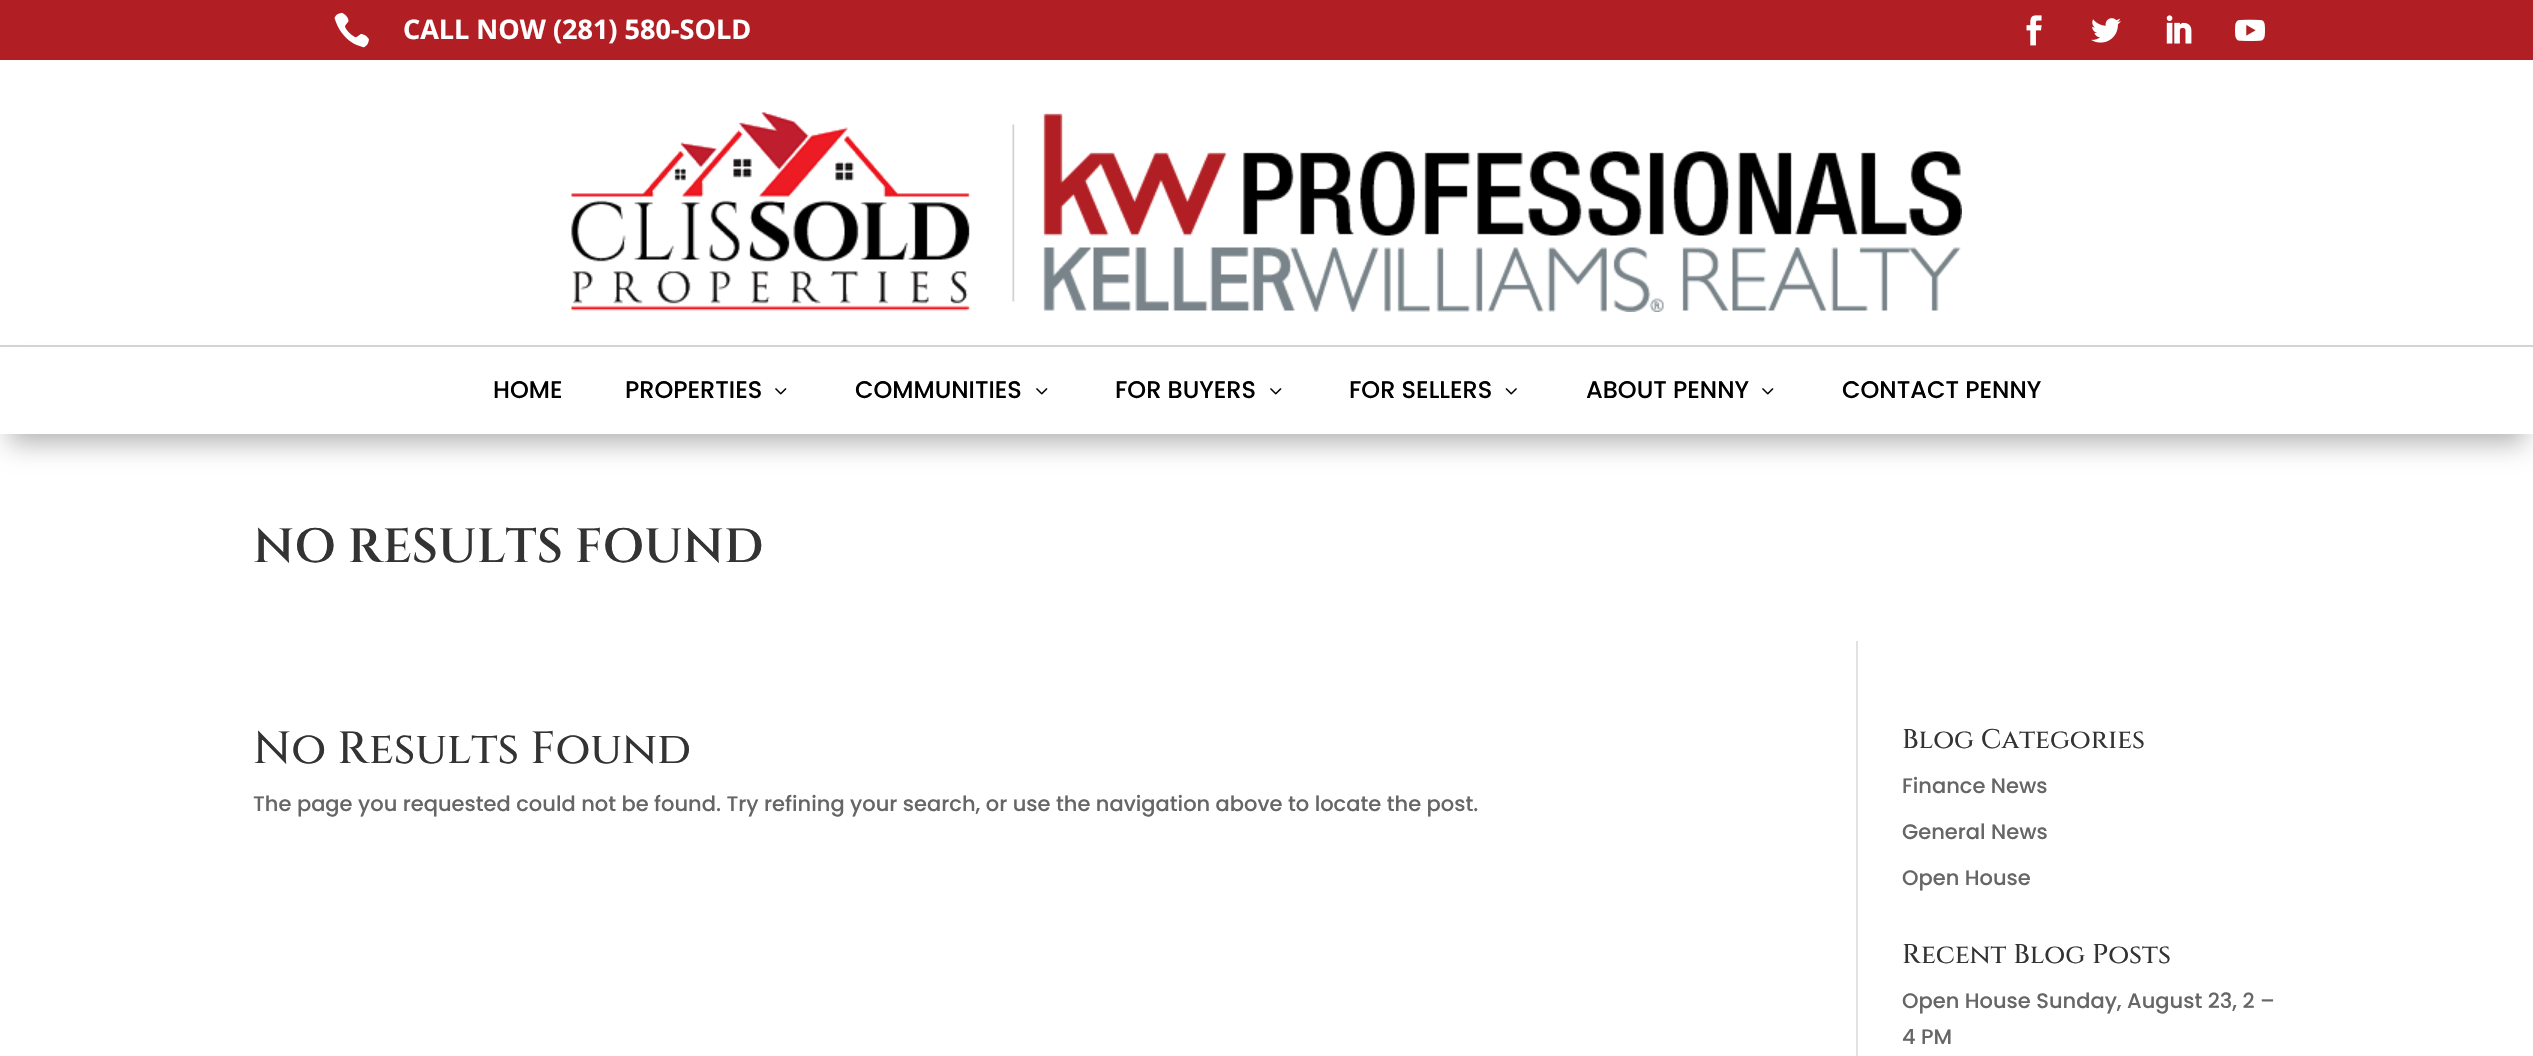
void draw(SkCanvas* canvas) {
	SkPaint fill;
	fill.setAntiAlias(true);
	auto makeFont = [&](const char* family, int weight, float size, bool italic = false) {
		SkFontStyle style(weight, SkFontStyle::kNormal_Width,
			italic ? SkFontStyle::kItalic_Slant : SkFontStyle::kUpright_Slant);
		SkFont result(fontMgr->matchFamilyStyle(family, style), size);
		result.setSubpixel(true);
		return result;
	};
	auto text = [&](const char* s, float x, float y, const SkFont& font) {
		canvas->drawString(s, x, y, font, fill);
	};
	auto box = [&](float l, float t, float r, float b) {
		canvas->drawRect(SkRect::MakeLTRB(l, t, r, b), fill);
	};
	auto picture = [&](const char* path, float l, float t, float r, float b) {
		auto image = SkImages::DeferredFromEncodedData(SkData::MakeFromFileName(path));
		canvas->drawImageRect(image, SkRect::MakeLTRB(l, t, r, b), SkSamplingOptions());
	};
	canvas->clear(0xFFFFFFFF);
	fill.setColor(0xFFB11F24);
	box(0, 0, 2533, 60);
	picture("image0.png", 334, 12, 369, 48);
	picture("image1.png", 2026, 15, 2042, 46);
	picture("image2.png", 2091, 18, 2121, 43);
	picture("image3.png", 2166, 15, 2192, 44);
	picture("image4.png", 2235, 19, 2265, 42);
	fill.setColor(0x4D000000);
	fill.setMaskFilter(SkMaskFilter::MakeBlur(kNormal_SkBlurStyle, 13.5f));
	canvas->drawRect(SkRect::MakeLTRB(9, 374, 2525, 443), fill);
	fill.setMaskFilter(nullptr);
	fill.setColor(0xFFD3D3D3);
	box(0, 345, 2533, 347);
	picture("image5.png", 571, 112, 1962, 312);
	fill.setColor(0xFFFFFFFF);
	box(0, 349, 2533, 434);
	picture("image6.png", 775, 388, 787, 395);
	picture("image6.png", 1036, 388, 1048, 395);
	picture("image6.png", 1270, 388, 1282, 395);
	picture("image7.png", 1505, 388, 1517, 395);
	picture("image6.png", 1762, 388, 1774, 395);
	fill.setColor(0xFFE2E2E2);
	box(1856, 641, 1858, 1056);
	auto font1 = makeFont("Open Sans", 700, 27);
	fill.setColor(0xFFFFFFFF);
	text("CALL NOW (281) 580-SOLD", 403, 39, font1);
	auto font2 = makeFont("Poppins", 500, 24);
	fill.setColor(0xFF000000);
	text("HOME", 493, 398, font2);
	text("PROPERTIES", 625, 398, font2);
	text("COMMUNITIES", 855, 398, font2);
	text("FOR BUYERS", 1115, 398, font2);
	text("FOR SELLERS", 1349, 398, font2);
	text("ABOUT PENNY", 1586, 398, font2);
	text("CONTACT PENNY", 1842, 398, font2);
	auto font3 = makeFont("Cinzel", 600, 48);
	fill.setColor(0xFF333333);
	text("NO RESULTS FOUND", 253, 562, font3);
	auto font4 = makeFont("Cinzel", 500, 45);
	text("No Results Found", 253, 763, font4);
	auto font5 = makeFont("Poppins", 500, 21);
	fill.setColor(0xFF666666);
	text("The page you requested could not be found. Try refining your search, or use the navigation above to locate the post.", 253, 811, font5);
	auto font6 = makeFont("Cinzel", 500, 27);
	fill.setColor(0xFF333333);
	text("Blog Categories", 1902, 748, font6);
	fill.setColor(0xFF666666);
	text("Finance News", 1902, 793, font5);
	text("General News", 1902, 839, font5);
	text("Open House", 1902, 885, font5);
	fill.setColor(0xFF333333);
	text("Recent Blog Posts", 1902, 963, font6);
	fill.setColor(0xFF666666);
	text("Open House Sunday, August 23, 2 –", 1902, 1008, font5);
	text("4 PM", 1902, 1044, font5);
}
